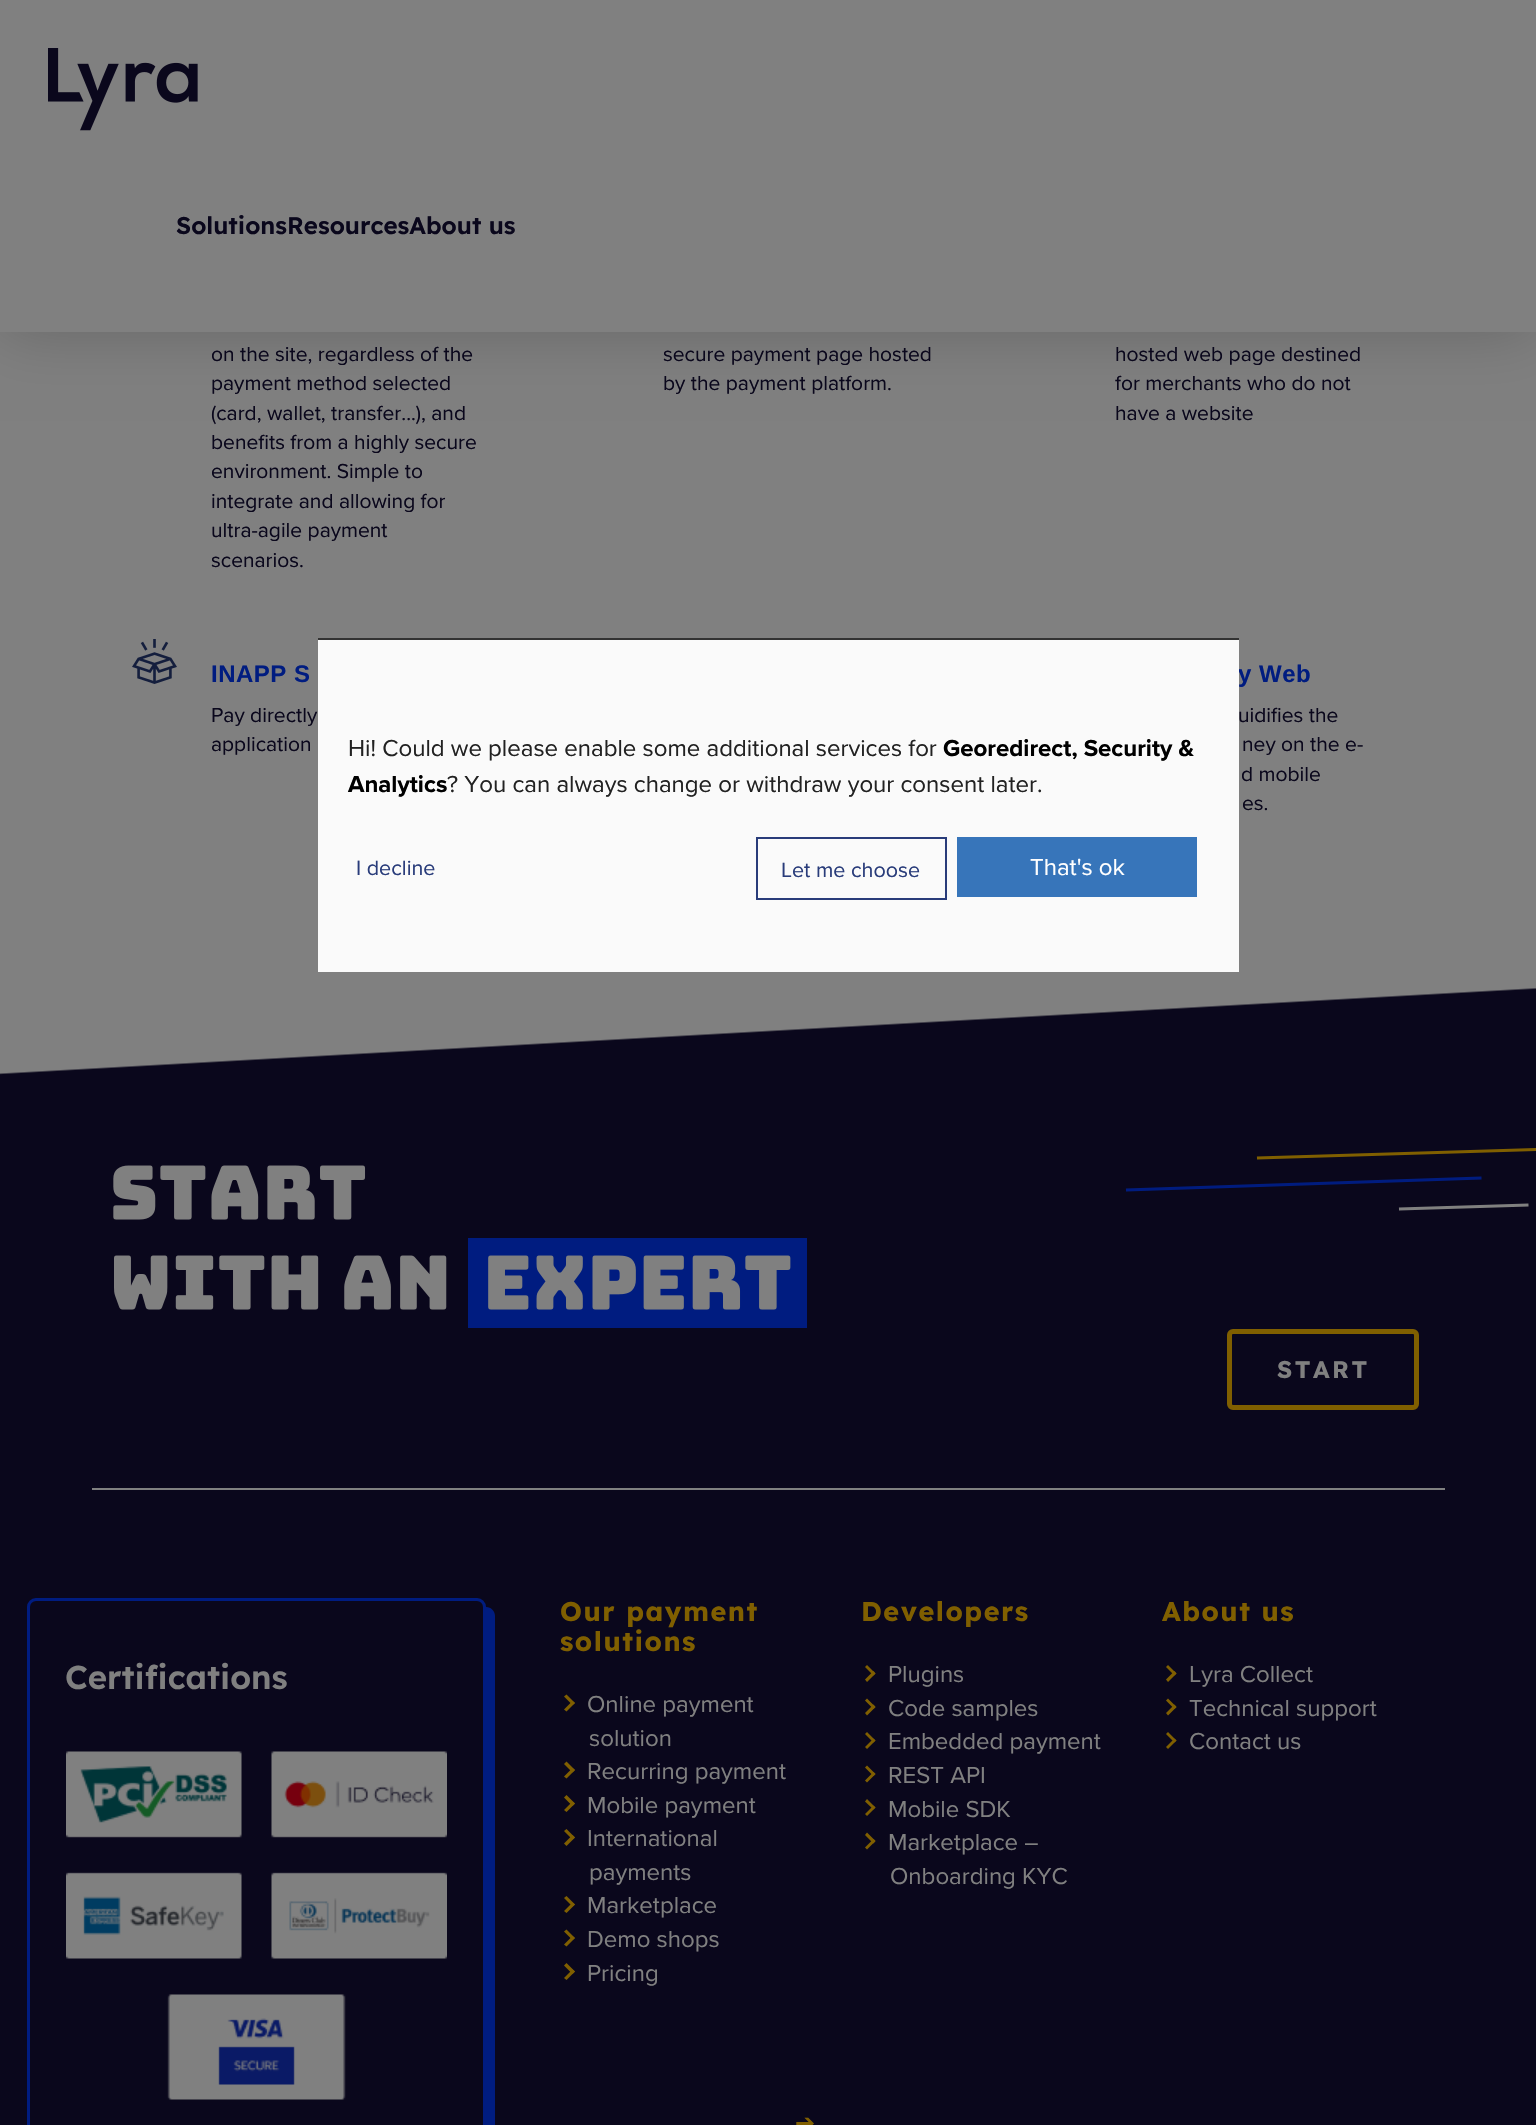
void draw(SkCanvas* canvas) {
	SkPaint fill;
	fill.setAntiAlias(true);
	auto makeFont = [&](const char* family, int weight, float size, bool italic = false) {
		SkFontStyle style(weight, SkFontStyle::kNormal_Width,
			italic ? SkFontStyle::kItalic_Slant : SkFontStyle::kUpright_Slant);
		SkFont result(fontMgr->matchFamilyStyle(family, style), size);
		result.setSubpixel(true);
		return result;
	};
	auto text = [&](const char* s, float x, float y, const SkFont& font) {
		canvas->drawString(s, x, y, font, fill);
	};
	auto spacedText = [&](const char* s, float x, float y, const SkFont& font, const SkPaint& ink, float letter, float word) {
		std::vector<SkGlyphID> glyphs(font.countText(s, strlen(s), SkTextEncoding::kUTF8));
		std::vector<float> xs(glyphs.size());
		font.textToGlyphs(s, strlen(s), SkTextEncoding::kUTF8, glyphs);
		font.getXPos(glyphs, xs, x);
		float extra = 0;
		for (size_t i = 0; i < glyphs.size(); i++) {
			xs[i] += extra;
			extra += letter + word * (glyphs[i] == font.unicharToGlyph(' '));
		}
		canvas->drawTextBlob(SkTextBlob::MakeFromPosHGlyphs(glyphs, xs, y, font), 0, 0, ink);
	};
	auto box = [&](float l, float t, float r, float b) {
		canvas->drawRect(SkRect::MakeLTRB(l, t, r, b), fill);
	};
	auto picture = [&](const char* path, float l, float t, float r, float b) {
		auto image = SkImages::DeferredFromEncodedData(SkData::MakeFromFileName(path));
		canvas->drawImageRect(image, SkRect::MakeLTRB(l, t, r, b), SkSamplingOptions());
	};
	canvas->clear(0xFF808080);
	fill.setColor(0x33000000);
	fill.setMaskFilter(SkMaskFilter::MakeBlur(kNormal_SkBlurStyle, 30));
	canvas->drawRect(SkRect::MakeLTRB(0, 0, 1536, 332), fill);
	fill.setMaskFilter(nullptr);
	fill.setColor(0xFF808080);
	box(0, 0, 1536, 332);
	picture("image0.png", 48, 48, 198, 131);
	picture("image1.png", 132, 639, 177, 684);
	fill.setColor(0xFF0A071C);
	box(0, 1077, 1536, 2125);
	{
		const SkColor colors[] = {0x000A071C, 0xFF0A071C};
		const float stops[] = {0.49f, 0.5f};
		const SkPoint ends[] = {{763, 942}, {773, 1122}};
		fill.setShader(SkGradientShader::MakeLinear(ends, colors, stops, 2, SkTileMode::kClamp));
		fill.setAlpha(255);
	}
	box(0, 988, 1536, 1077);
	fill.setShader(nullptr);
	fill.setColor(0xFF808080);
	box(92, 1488, 1445, 1490);
	picture("image2.png", 113, 1165, 366, 1220);
	picture("image3.png", 114, 1255, 447, 1310);
	fill.setColor(0xFF001C80);
	box(468, 1238, 807, 1328);
	picture("image4.png", 488, 1255, 791, 1310);
	fill.setStyle(SkPaint::kStroke_Style);
	fill.setStrokeWidth(3);
	fill.setColor(0xFF808080);
	canvas->drawPath(SkPathBuilder().moveTo(1528.5f, 1205).lineTo(1399, 1209).detach(), fill);
	fill.setColor(0xFF001C80);
	canvas->drawPath(SkPathBuilder().moveTo(1481.5f, 1178).lineTo(1126, 1190).detach(), fill);
	fill.setColor(0xFF805F00);
	canvas->drawPath(SkPathBuilder().moveTo(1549, 1149).lineTo(1257, 1158).detach(), fill);
	fill.setStrokeWidth(5);
	canvas->drawRoundRect(SkRect::MakeLTRB(1229.5f, 1331.5f, 1416.5f, 1407.5f), 3.5f, 3.5f, fill);
	fill.setStyle(SkPaint::kFill_Style);
	fill.setColor(0xFF001C80);
	canvas->drawPath(SkPathBuilder().moveTo(36, 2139).cubicTo(36, 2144, 40, 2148, 45, 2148).lineTo(486, 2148).cubicTo(491, 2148, 495, 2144, 495, 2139).lineTo(495, 1616).cubicTo(495, 1611, 491, 1607, 486, 1607).lineTo(486, 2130).cubicTo(486, 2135, 482, 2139, 477, 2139).close().detach(), fill);
	fill.setStyle(SkPaint::kStroke_Style);
	fill.setStrokeWidth(3);
	canvas->drawRoundRect(SkRect::MakeLTRB(28.5f, 1599.5f, 484.5f, 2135.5f), 7.5f, 7.5f, fill);
	picture("image5.png", 66, 1751, 447, 2100);
	fill.setStyle(SkPaint::kFill_Style);
	fill.setColor(0xFF805F00);
	canvas->drawPath(SkPathBuilder().moveTo(564, 1696.5f).lineTo(566.5f, 1694.5f).lineTo(575, 1703).lineTo(572.5f, 1705).close().detach(), fill);
	canvas->drawPath(SkPathBuilder().moveTo(564, 1709.5f).lineTo(572.5f, 1701).lineTo(575, 1703).lineTo(566.5f, 1711.5f).close().detach(), fill);
	canvas->drawPath(SkPathBuilder().moveTo(564, 1764).lineTo(566.5f, 1761.5f).lineTo(575, 1770).lineTo(572.5f, 1772.5f).close().detach(), fill);
	canvas->drawPath(SkPathBuilder().moveTo(564, 1776.5f).lineTo(572.5f, 1768).lineTo(575, 1770).lineTo(566.5f, 1778.5f).close().moveTo(564, 1797.5f).lineTo(566.5f, 1795).lineTo(575, 1803.5f).lineTo(572.5f, 1806).close().detach(), fill);
	canvas->drawPath(SkPathBuilder().moveTo(564, 1810).lineTo(572.5f, 1801.5f).lineTo(575, 1803.5f).lineTo(566.5f, 1812).close().moveTo(564, 1831).lineTo(566.5f, 1829).lineTo(575, 1837.5f).lineTo(572.5f, 1839.5f).close().detach(), fill);
	canvas->drawPath(SkPathBuilder().moveTo(564, 1843.5f).lineTo(572.5f, 1835).lineTo(575, 1837.5f).lineTo(566.5f, 1846).close().detach(), fill);
	canvas->drawPath(SkPathBuilder().moveTo(564, 1898).lineTo(566.5f, 1896).lineTo(575, 1904.5f).lineTo(572.5f, 1906.5f).close().detach(), fill);
	canvas->drawPath(SkPathBuilder().moveTo(564, 1911).lineTo(572.5f, 1902.5f).lineTo(575, 1904.5f).lineTo(566.5f, 1913).close().moveTo(564, 1931.5f).lineTo(566.5f, 1929.5f).lineTo(575, 1938).lineTo(572.5f, 1940).close().detach(), fill);
	canvas->drawPath(SkPathBuilder().moveTo(564, 1944.5f).lineTo(572.5f, 1936).lineTo(575, 1938).lineTo(566.5f, 1946.5f).close().moveTo(564, 1965.5f).lineTo(566.5f, 1963).lineTo(575, 1971.5f).lineTo(572.5f, 1974).close().detach(), fill);
	canvas->drawPath(SkPathBuilder().moveTo(564, 1978).lineTo(572.5f, 1969.5f).lineTo(575, 1971.5f).lineTo(566.5f, 1980).close().detach(), fill);
	canvas->drawPath(SkPathBuilder().moveTo(865, 1667).lineTo(867, 1665).lineTo(875.5f, 1673.5f).lineTo(873.5f, 1675.5f).close().detach(), fill);
	canvas->drawPath(SkPathBuilder().moveTo(865, 1679.5f).lineTo(873.5f, 1671).lineTo(875.5f, 1673.5f).lineTo(867, 1682).close().moveTo(865, 1700.5f).lineTo(867, 1698.5f).lineTo(875.5f, 1707).lineTo(873.5f, 1709).close().detach(), fill);
	canvas->drawPath(SkPathBuilder().moveTo(865, 1713).lineTo(873.5f, 1704.5f).lineTo(875.5f, 1707).lineTo(867, 1715.5f).close().moveTo(865, 1734).lineTo(867, 1732).lineTo(875.5f, 1740.5f).lineTo(873.5f, 1742.5f).close().detach(), fill);
	canvas->drawPath(SkPathBuilder().moveTo(865, 1747).lineTo(873.5f, 1738.5f).lineTo(875.5f, 1740.5f).lineTo(867, 1749).close().moveTo(865, 1767.5f).lineTo(867, 1765.5f).lineTo(875.5f, 1774).lineTo(873.5f, 1776).close().detach(), fill);
	canvas->drawPath(SkPathBuilder().moveTo(865, 1780.5f).lineTo(873.5f, 1772).lineTo(875.5f, 1774).lineTo(867, 1782.5f).close().moveTo(865, 1801.5f).lineTo(867, 1799).lineTo(875.5f, 1807.5f).lineTo(873.5f, 1809.5f).close().detach(), fill);
	canvas->drawPath(SkPathBuilder().moveTo(865, 1814).lineTo(873.5f, 1805.5f).lineTo(875.5f, 1807.5f).lineTo(867, 1816).close().moveTo(865, 1835).lineTo(867, 1832.5f).lineTo(875.5f, 1841).lineTo(873.5f, 1843.5f).close().detach(), fill);
	canvas->drawPath(SkPathBuilder().moveTo(865, 1847.5f).lineTo(873.5f, 1839).lineTo(875.5f, 1841).lineTo(867, 1849.5f).close().detach(), fill);
	canvas->drawPath(SkPathBuilder().moveTo(1166, 1667).lineTo(1168, 1665).lineTo(1176.5f, 1673.5f).lineTo(1174.5f, 1675.5f).close().detach(), fill);
	canvas->drawPath(SkPathBuilder().moveTo(1166, 1679.5f).lineTo(1174.5f, 1671).lineTo(1176.5f, 1673.5f).lineTo(1168, 1682).close().moveTo(1166, 1700.5f).lineTo(1168, 1698.5f).lineTo(1176.5f, 1707).lineTo(1174.5f, 1709).close().detach(), fill);
	canvas->drawPath(SkPathBuilder().moveTo(1166, 1713).lineTo(1174.5f, 1704.5f).lineTo(1176.5f, 1707).lineTo(1168, 1715.5f).close().moveTo(1166, 1734).lineTo(1168, 1732).lineTo(1176.5f, 1740.5f).lineTo(1174.5f, 1742.5f).close().detach(), fill);
	canvas->drawPath(SkPathBuilder().moveTo(1166, 1747).lineTo(1174.5f, 1738.5f).lineTo(1176.5f, 1740.5f).lineTo(1168, 1749).close().detach(), fill);
	fill.setColor(0xFF333333);
	box(318, 638, 1239, 640);
	auto font1 = makeFont("Lexend", 600, 24);
	fill.setColor(0xFF0A071C);
	text("SolutionsResourcesAbout us", 176, 234, font1);
	auto font2 = makeFont("Proxima Nova", 400, 21);
	text("on the site, regardless of the", 211, 361, font2);
	text("payment method selected", 211, 390, font2);
	text("(card, wallet, transfer...), and", 211, 420, font2);
	text("benefits from a highly secure", 211, 449, font2);
	text("environment. Simple to", 211, 478, font2);
	text("integrate and allowing for", 211, 508, font2);
	text("ultra-agile payment", 211, 537, font2);
	text("scenarios.", 211, 567, font2);
	text("secure payment page hosted", 663, 361, font2);
	text("by the payment platform.", 663, 390, font2);
	text("hosted web page destined", 1115, 361, font2);
	text("for merchants who do not", 1115, 390, font2);
	text("have a website", 1115, 420, font2);
	auto font3 = makeFont("Liberation Sans", 700, 24);
	fill.setColor(0xFF001C80);
	spacedText("INAPP S", 211, 682, font3, fill, 0.5f, 0);
	fill.setColor(0xFF0A071C);
	text("Pay directly", 211, 722, font2);
	text("application", 211, 751, font2);
	fill.setColor(0xFF001C80);
	spacedText("y Web", 1238, 682, font3, fill, 0.5f, 0);
	fill.setColor(0xFF0A071C);
	text("uidifies the", 1238, 722, font2);
	text("ney on the e-", 1242, 751, font2);
	text("d mobile", 1241, 781, font2);
	text("es.", 1242, 810, font2);
	auto font4 = makeFont("Lexend", 700, 24);
	fill.setColor(0xFF808080);
	spacedText("START", 1277, 1378, font4, fill, 2.5f, 0);
	auto font5 = makeFont("Lexend", 600, 33);
	text("Certifications", 65, 1689, font5);
	auto font6 = makeFont("Lexend", 700, 27);
	fill.setColor(0xFF805F00);
	spacedText("Our payment", 560, 1621, font6, fill, 1.5f, 0);
	spacedText("solutions", 560, 1651, font6, fill, 1.5f, 0);
	auto font7 = makeFont("Proxima Nova", 400, 24);
	fill.setColor(0xFF808080);
	text("Online payment", 587, 1712, font7);
	text("solution", 589, 1746, font7);
	text("Recurring payment", 587, 1779, font7);
	text("Mobile payment", 587, 1813, font7);
	text("International", 587, 1846, font7);
	text("payments", 589, 1880, font7);
	text("Marketplace", 587, 1913, font7);
	text("Demo shops", 587, 1947, font7);
	text("Pricing", 587, 1981, font7);
	fill.setColor(0xFF805F00);
	spacedText("Developers", 861, 1621, font6, fill, 1.5f, 0);
	fill.setColor(0xFF808080);
	text("Plugins", 888, 1682, font7);
	text("Code samples", 888, 1716, font7);
	text("Embedded payment", 888, 1749, font7);
	text("REST API", 888, 1783, font7);
	text("Mobile SDK", 888, 1817, font7);
	text("Marketplace –", 888, 1850, font7);
	text("Onboarding KYC", 890, 1884, font7);
	fill.setColor(0xFF805F00);
	spacedText("About us", 1162, 1621, font6, fill, 1.5f, 0);
	fill.setColor(0xFF808080);
	text("Lyra Collect", 1189, 1682, font7);
	text("Technical support", 1189, 1716, font7);
	text("Contact us", 1189, 1749, font7);
	auto font8 = makeFont("DejaVu Sans", 400, 24);
	fill.setColor(0xFF805F00);
	text("➔", 795, 2131, font8);
	fill.setColor(0xFFFAFAFA);
	box(318, 640, 1239, 972);
	fill.setColor(0xFF222222);
	text("Hi! Could we please enable some additional services for", 348, 756, font7);
	auto font9 = makeFont("Proxima Nova", 700, 24);
	fill.setColor(0xFF000000);
	text("Georedirect, Security &", 943, 756, font9);
	text("Analytics", 348, 792, font9);
	fill.setColor(0xFF222222);
	text("? You can always change or withdraw your consent later.", 447, 792, font7);
	auto font10 = makeFont("Proxima Nova", 400, 21.5f);
	fill.setColor(0xFF293C7A);
	text("I decline", 356, 875, font10);
	fill.setStyle(SkPaint::kStroke_Style);
	fill.setStrokeWidth(2);
	canvas->drawRect(SkRect::MakeLTRB(757, 838, 946, 899), fill);
	fill.setStyle(SkPaint::kFill_Style);
	text("Let me choose", 781, 877, font10);
	fill.setColor(0xFF3775BA);
	box(957, 837, 1197, 897);
	fill.setColor(0xFFFFFFFF);
	text("That's ok", 1030, 875, font7);
}
